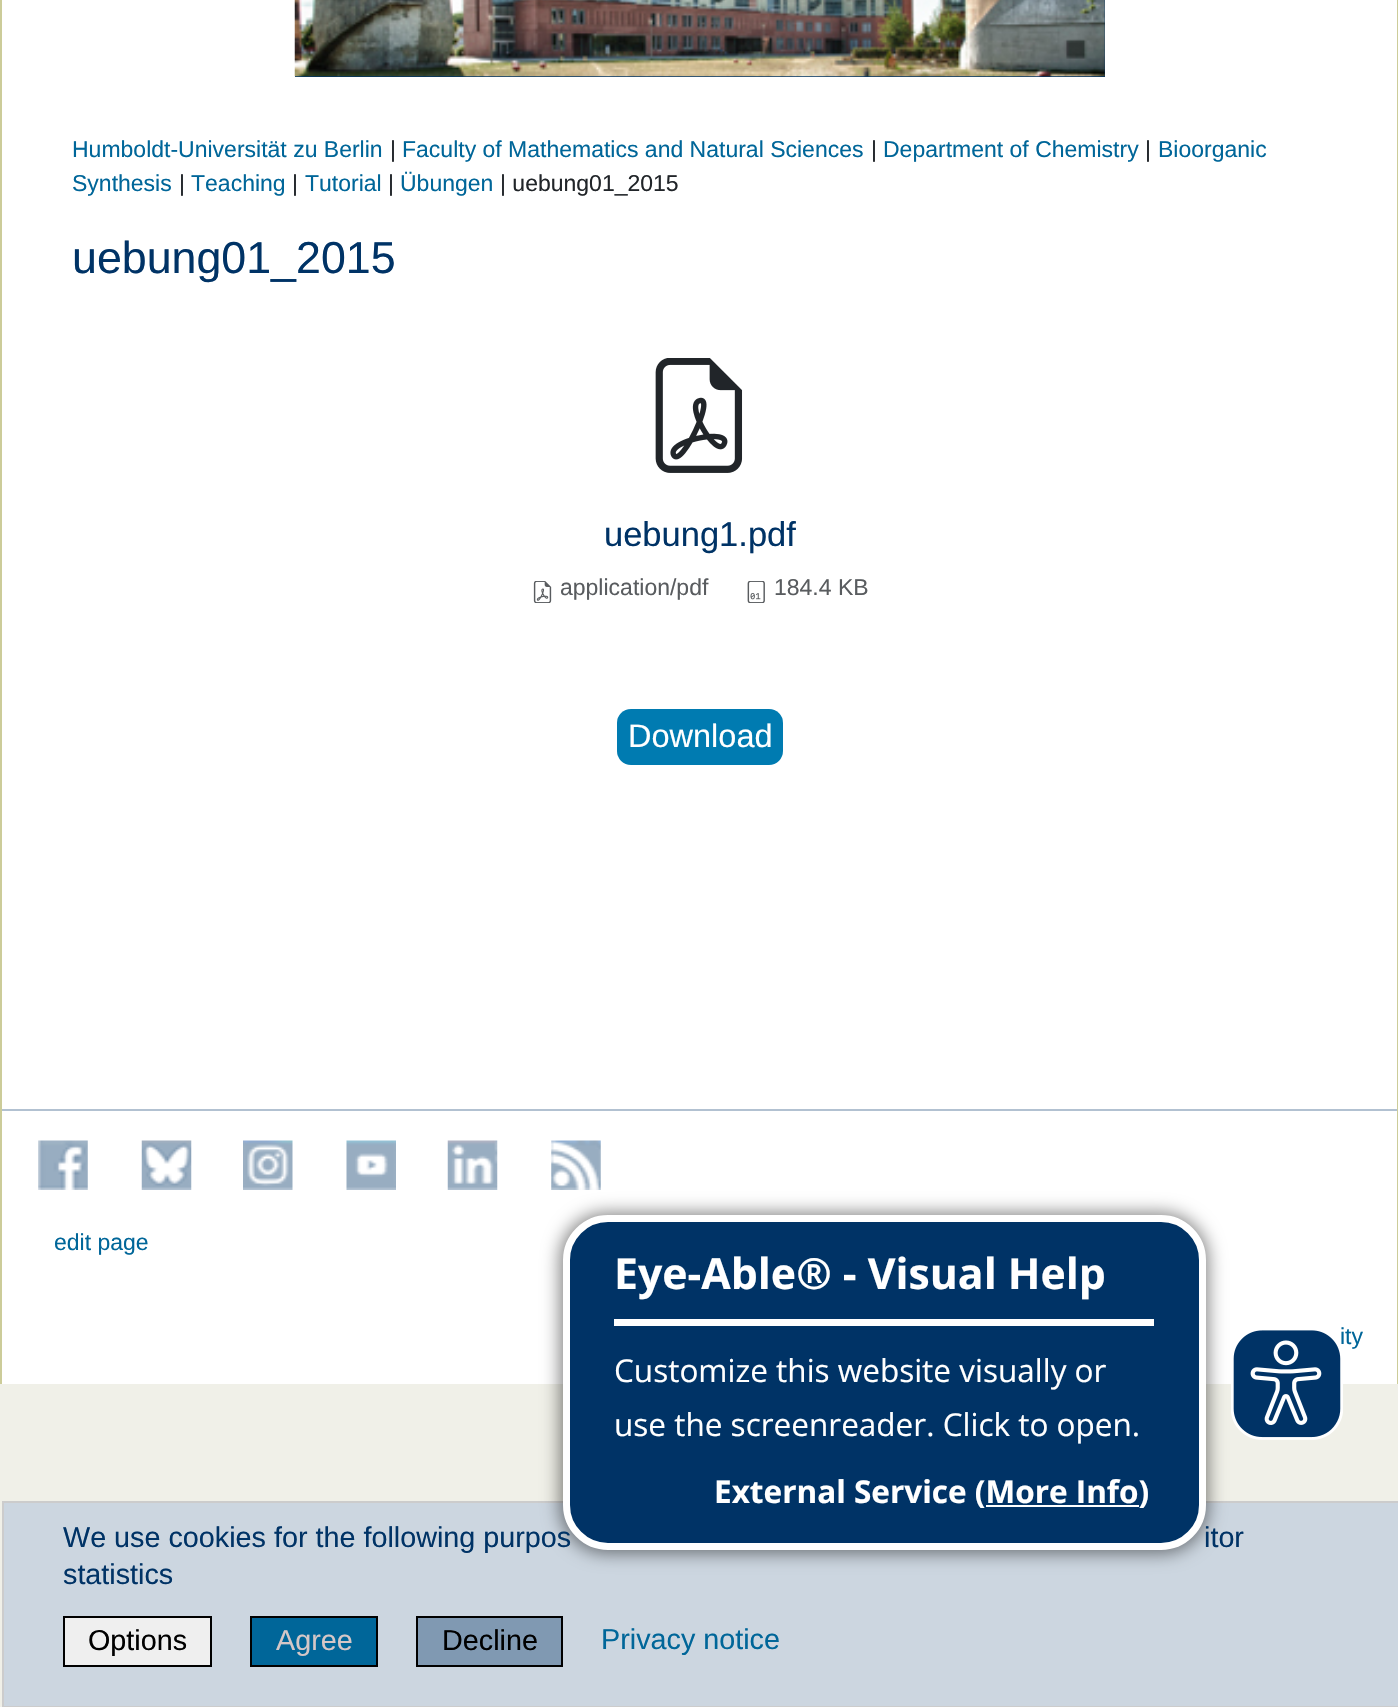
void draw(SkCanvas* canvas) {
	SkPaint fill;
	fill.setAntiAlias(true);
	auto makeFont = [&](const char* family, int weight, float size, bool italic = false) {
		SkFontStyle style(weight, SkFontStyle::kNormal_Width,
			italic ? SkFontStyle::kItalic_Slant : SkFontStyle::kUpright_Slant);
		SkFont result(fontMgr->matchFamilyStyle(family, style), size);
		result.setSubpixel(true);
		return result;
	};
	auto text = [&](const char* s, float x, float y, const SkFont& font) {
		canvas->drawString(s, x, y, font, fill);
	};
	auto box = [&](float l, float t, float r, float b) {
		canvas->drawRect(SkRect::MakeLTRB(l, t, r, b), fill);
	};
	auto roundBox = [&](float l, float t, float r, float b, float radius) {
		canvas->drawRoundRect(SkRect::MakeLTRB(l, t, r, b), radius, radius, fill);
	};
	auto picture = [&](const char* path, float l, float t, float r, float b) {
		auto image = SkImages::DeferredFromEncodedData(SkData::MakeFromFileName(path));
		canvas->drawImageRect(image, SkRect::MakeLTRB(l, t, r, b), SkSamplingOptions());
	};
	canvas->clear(0xFFF0F0E8);
	fill.setColor(0xFFFFFFFF);
	box(2, 0, 1397, 1384);
	fill.setColor(0xFF003366);
	box(295, 0, 1105, 77);
	picture("image0.png", 294, 0, 1105, 77);
	fill.setColor(0xFFCCCC99);
	box(1397, 0, 1398, 1384);
	box(0, 0, 2, 1384);
	picture("image1.png", 655, 358, 743, 473);
	picture("image2.png", 533, 581, 552, 603);
	picture("image3.png", 747, 581, 765, 603);
	fill.setColor(0xFF007BB1);
	roundBox(617, 709, 783, 765, 14);
	fill.setColor(0xFFB2C1D1);
	box(2, 1109, 1397, 1111);
	picture("image4.png", 38, 1140, 88, 1190);
	picture("image5.png", 141, 1140, 192, 1190);
	picture("image6.png", 243, 1140, 293, 1190);
	picture("image7.png", 346, 1140, 396, 1190);
	picture("image8.png", 447, 1140, 498, 1190);
	picture("image9.png", 551, 1140, 601, 1190);
	fill.setColor(0xFFCCD6E0);
	canvas->drawRect(SkRect::MakeLTRB(3, 1502, 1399, 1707), fill);
	fill.setStyle(SkPaint::kStroke_Style);
	fill.setStrokeWidth(2);
	fill.setColor(0xFFCCCCCC);
	canvas->drawRect(SkRect::MakeLTRB(3, 1502, 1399, 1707), fill);
	fill.setStyle(SkPaint::kFill_Style);
	fill.setColor(0xFFEFEFEF);
	canvas->drawRect(SkRect::MakeLTRB(64, 1617, 211, 1666), fill);
	fill.setStyle(SkPaint::kStroke_Style);
	fill.setColor(0xFF000000);
	canvas->drawRect(SkRect::MakeLTRB(64, 1617, 211, 1666), fill);
	fill.setStyle(SkPaint::kFill_Style);
	fill.setColor(0xFF006699);
	canvas->drawRect(SkRect::MakeLTRB(251, 1617, 377, 1666), fill);
	fill.setStyle(SkPaint::kStroke_Style);
	fill.setColor(0xFF000000);
	canvas->drawRect(SkRect::MakeLTRB(251, 1617, 377, 1666), fill);
	fill.setStyle(SkPaint::kFill_Style);
	fill.setColor(0xFF8099B2);
	canvas->drawRect(SkRect::MakeLTRB(417, 1617, 562, 1666), fill);
	fill.setStyle(SkPaint::kStroke_Style);
	fill.setColor(0xFF000000);
	canvas->drawRect(SkRect::MakeLTRB(417, 1617, 562, 1666), fill);
	fill.setStyle(SkPaint::kFill_Style);
	fill.setColor(0x80000000);
	fill.setMaskFilter(SkMaskFilter::MakeBlur(kNormal_SkBlurStyle, 9));
	canvas->drawRoundRect(SkRect::MakeLTRB(560, 1213, 1208, 1553), 47, 47, fill);
	fill.setMaskFilter(nullptr);
	fill.setColor(0xFF003366);
	canvas->drawRoundRect(SkRect::MakeLTRB(566.5f, 1218.5f, 1202.5f, 1546.5f), 41.5f, 41.5f, fill);
	fill.setStyle(SkPaint::kStroke_Style);
	fill.setStrokeWidth(7);
	fill.setColor(0xFFFFFFFF);
	canvas->drawRoundRect(SkRect::MakeLTRB(566.5f, 1218.5f, 1202.5f, 1546.5f), 41.5f, 41.5f, fill);
	fill.setStyle(SkPaint::kFill_Style);
	box(614, 1319, 1154, 1326);
	box(986, 1505, 1139, 1507);
	auto font1 = makeFont("Liberation Sans", 400, 23);
	fill.setColor(0xFF006699);
	text("Humboldt-Universität zu Berlin", 72, 157, font1);
	fill.setColor(0xFF212529);
	text("|", 390, 157, font1);
	fill.setColor(0xFF006699);
	text("Faculty of Mathematics and Natural Sciences", 402, 157, font1);
	fill.setColor(0xFF212529);
	text("|", 871, 157, font1);
	fill.setColor(0xFF006699);
	text("Department of Chemistry", 883, 157, font1);
	fill.setColor(0xFF212529);
	text("|", 1145, 157, font1);
	fill.setColor(0xFF006699);
	text("Bioorganic", 1158, 157, font1);
	text("Synthesis", 72, 191, font1);
	fill.setColor(0xFF212529);
	text("|", 179, 191, font1);
	fill.setColor(0xFF006699);
	text("Teaching", 191, 191, font1);
	fill.setColor(0xFF212529);
	text("|", 292, 191, font1);
	fill.setColor(0xFF006699);
	text("Tutorial", 305, 191, font1);
	fill.setColor(0xFF212529);
	text("|", 388, 191, font1);
	fill.setColor(0xFF006699);
	text("Übungen", 400, 191, font1);
	fill.setColor(0xFF212529);
	text("| uebung01_2015", 500, 191, font1);
	auto font2 = makeFont("Liberation Sans", 400, 44.75f);
	fill.setColor(0xFF003366);
	text("uebung01_2015", 72, 273, font2);
	auto font3 = makeFont("Liberation Sans", 400, 34.5f);
	text("uebung1.pdf", 604, 546, font3);
	fill.setColor(0xFF595C5F);
	text("application/pdf", 560, 595, font1);
	text("184.4 KB", 774, 595, font1);
	auto font4 = makeFont("Liberation Sans", 400, 32.5f);
	fill.setColor(0xFFFFFFFF);
	text("Download", 628, 747, font4);
	fill.setColor(0xFF006699);
	text("edit page", 54, 1250, font1);
	text("ity", 1340, 1344, font1);
	auto font5 = makeFont("Liberation Sans", 400, 28.75f);
	fill.setColor(0xFF003366);
	text("We use cookies for the following purpos", 63, 1547, font5);
	text("itor", 1204, 1547, font5);
	text("statistics", 63, 1584, font5);
	fill.setColor(0xFF000000);
	text("Options", 88, 1650, font5);
	fill.setColor(0xFFD5C7C7);
	text("Agree", 276, 1650, font5);
	fill.setColor(0xFF000000);
	text("Decline", 442, 1650, font5);
	fill.setColor(0xFF006699);
	text("Privacy notice", 601, 1649, font5);
	auto font6 = makeFont("Open Sans", 700, 42.75f);
	fill.setColor(0xFFFFFFFF);
	text("Eye-Able® - Visual Help", 614, 1289, font6);
	auto font7 = makeFont("Open Sans", 400, 31.5f);
	text("Customize this website visually or", 614, 1382, font7);
	text("use the screenreader. Click to open.", 614, 1436, font7);
	auto font8 = makeFont("Open Sans", 700, 31.5f);
	text("External Service (More Info)", 714, 1503, font8);
	picture("image10.png", 1231, 1328, 1343, 1440);
}
